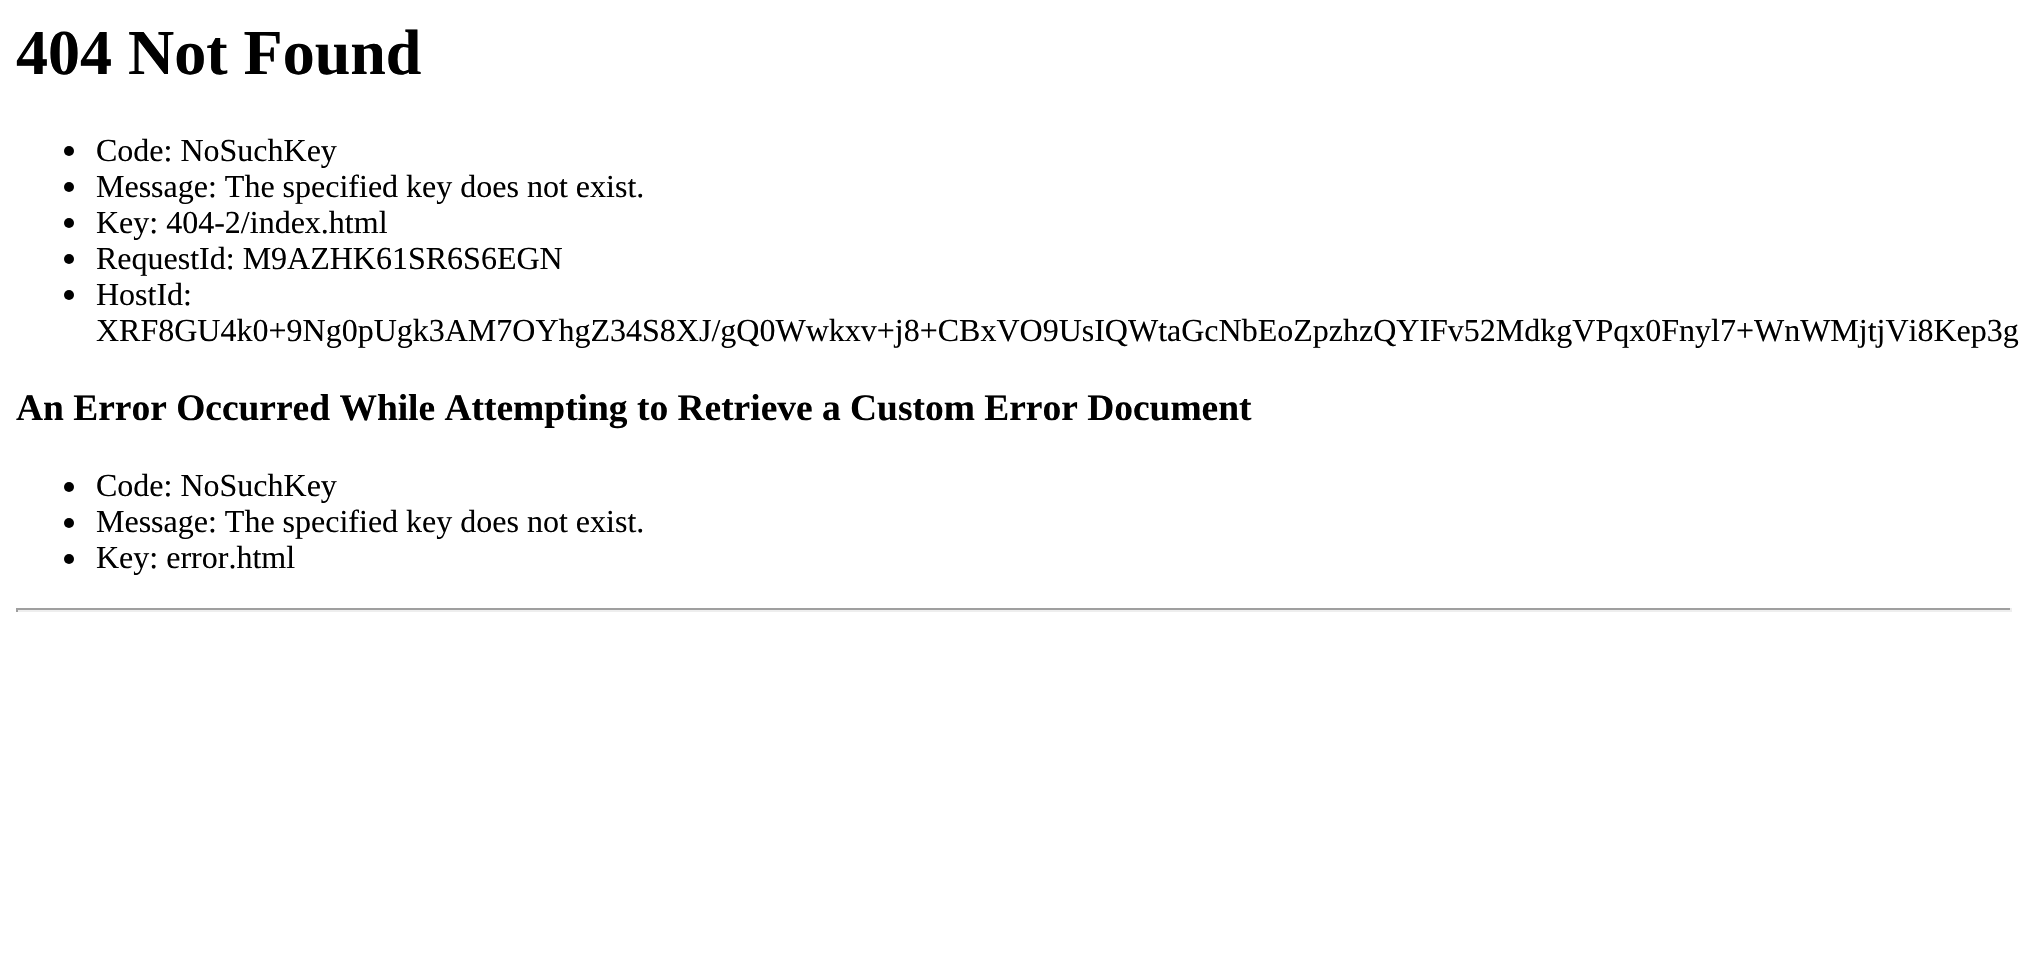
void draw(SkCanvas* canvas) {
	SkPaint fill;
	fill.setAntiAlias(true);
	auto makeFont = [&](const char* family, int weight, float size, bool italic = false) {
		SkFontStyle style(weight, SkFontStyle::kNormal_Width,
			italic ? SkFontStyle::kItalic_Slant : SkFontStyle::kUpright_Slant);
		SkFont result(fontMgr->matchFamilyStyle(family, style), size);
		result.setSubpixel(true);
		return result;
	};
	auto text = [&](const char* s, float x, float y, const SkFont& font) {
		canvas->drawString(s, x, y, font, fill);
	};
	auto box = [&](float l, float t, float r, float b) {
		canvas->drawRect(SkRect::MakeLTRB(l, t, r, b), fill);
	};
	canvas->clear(0xFFFFFFFF);
	fill.setColor(0xFF000000);
	canvas->drawCircle(69, 151, 5, fill);
	canvas->drawCircle(69, 187, 5, fill);
	canvas->drawCircle(69, 223, 5, fill);
	canvas->drawCircle(69, 259, 5, fill);
	canvas->drawCircle(69, 295, 5, fill);
	canvas->drawCircle(69, 487, 5, fill);
	canvas->drawCircle(69, 523, 5, fill);
	canvas->drawCircle(69, 559, 5, fill);
	fill.setColor(0xFF9F9F9F);
	box(16, 608, 2012, 610);
	fill.setColor(0xFFEEEEEE);
	box(2010, 608, 2012, 612);
	box(16, 610, 2012, 612);
	fill.setColor(0xFF9F9F9F);
	box(16, 608, 18, 612);
	auto font1 = makeFont("Liberation Serif", 700, 64);
	fill.setColor(0xFF000000);
	text("404 Not Found", 16, 74, font1);
	auto font2 = makeFont("Liberation Serif", 400, 32);
	text("Code: NoSuchKey", 96, 161, font2);
	text("Message: The specified key does not exist.", 96, 197, font2);
	text("Key: 404-2/index.html", 96, 233, font2);
	text("RequestId: M9AZHK61SR6S6EGN", 96, 269, font2);
	text("HostId:", 96, 305, font2);
	text("XRF8GU4k0+9Ng0pUgk3AM7OYhgZ34S8XJ/gQ0Wwkxv+j8+CBxVO9UsIQWtaGcNbEoZpzhzQYIFv52MdkgVPqx0Fnyl7+WnWMjtjVi8Kep3g", 96, 341, font2);
	auto font3 = makeFont("Liberation Serif", 700, 37.45f);
	text("An Error Occurred While Attempting to Retrieve a Custom Error Document", 16, 420, font3);
	text("Code: NoSuchKey", 96, 496, font2);
	text("Message: The specified key does not exist.", 96, 532, font2);
	text("Key: error.html", 96, 568, font2);
}
